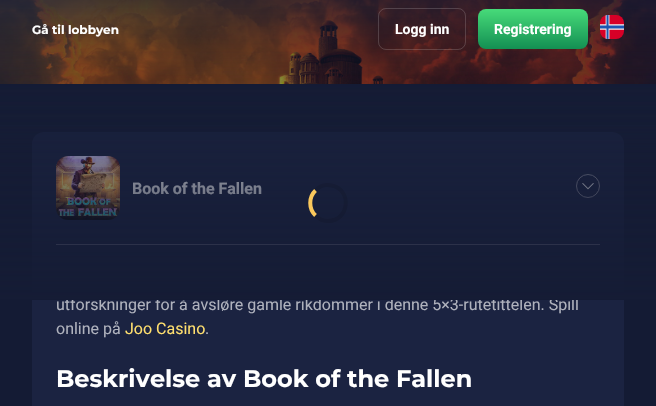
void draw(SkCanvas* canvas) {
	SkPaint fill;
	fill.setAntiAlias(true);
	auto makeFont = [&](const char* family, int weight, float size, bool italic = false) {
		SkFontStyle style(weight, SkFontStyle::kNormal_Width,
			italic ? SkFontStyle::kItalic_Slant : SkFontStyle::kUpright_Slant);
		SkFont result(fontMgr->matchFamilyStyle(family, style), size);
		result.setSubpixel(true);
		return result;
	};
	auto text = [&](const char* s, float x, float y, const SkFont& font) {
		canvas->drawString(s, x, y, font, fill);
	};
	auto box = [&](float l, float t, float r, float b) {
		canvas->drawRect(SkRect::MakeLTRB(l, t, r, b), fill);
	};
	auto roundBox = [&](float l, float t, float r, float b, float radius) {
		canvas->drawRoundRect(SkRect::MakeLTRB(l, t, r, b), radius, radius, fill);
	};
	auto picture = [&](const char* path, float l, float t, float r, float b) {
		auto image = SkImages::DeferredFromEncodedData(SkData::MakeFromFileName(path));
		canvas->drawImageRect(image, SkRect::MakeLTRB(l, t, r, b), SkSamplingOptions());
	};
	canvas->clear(0xFF141B34);
	picture("image0.png", 0, 0, 656, 84);
	fill.setColor(0xFF1B2341);
	roundBox(32, 132, 624, 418, 12);
	picture("image2.png", 56, 156, 120, 220);
	fill.setStyle(SkPaint::kStroke_Style);
	fill.setStrokeWidth(1);
	fill.setColor(0xFF808191);
	canvas->drawCircle(588, 186, 11.5f, fill);
	fill.setStyle(SkPaint::kFill_Style);
	{
		const SkColor colors[] = {0x00141B34, 0xCC141B34};
		const float stops[] = {0, 1};
		const SkPoint ends[] = {{328, 180}, {328, 0}};
		fill.setShader(SkGradientShader::MakeLinear(ends, colors, stops, 2, SkTileMode::kClamp));
		fill.setAlpha(255);
	}
	box(0, 0, 656, 175);
	fill.setStyle(SkPaint::kStroke_Style);
	fill.setShader(nullptr);
	fill.setColor(0x29FFFFFF);
	canvas->drawRoundRect(SkRect::MakeLTRB(378.5f, 8.5f, 465.5f, 49.5f), 7.5f, 7.5f, fill);
	fill.setStyle(SkPaint::kFill_Style);
	{
		const SkColor colors[] = {0xFF47DB79, 0xFF138F53};
		const float stops[] = {0, 1};
		const SkPoint ends[] = {{533, 9}, {533, 49}};
		fill.setShader(SkGradientShader::MakeLinear(ends, colors, stops, 2, SkTileMode::kClamp));
		fill.setAlpha(255);
	}
	roundBox(478, 9, 588, 49, 8);
	picture("image1.png", 600, 15, 624, 39);
	picture("image3.png", 582, 183, 594, 190);
	fill.setShader(nullptr);
	fill.setColor(0xFF808191);
	box(56, 244, 600, 245);
	auto font1 = makeFont("Montserrat", 700, 12);
	fill.setColor(0xFFFFFFFF);
	text("Gå til lobbyen", 32, 34, font1);
	auto font2 = makeFont("Roboto", 700, 14);
	text("Logg inn", 395, 34, font2);
	text("Registrering", 494, 34, font2);
	auto font3 = makeFont("Roboto", 700, 16);
	text("Book of the Fallen", 132, 194, font3);
	auto font4 = makeFont("Roboto", 400, 16);
	fill.setColor(0xFFAFB2BD);
	text("utforskninger for å avsløre gamle rikdommer i denne 5×3-rutetittelen. Spill", 56, 310, font4);
	{
		const SkColor colors[] = {0x00141B34, 0xFF141B34};
		const float stops[] = {0, 1};
		const SkPoint ends[] = {{328, 44}, {328, 300}};
		fill.setShader(SkGradientShader::MakeLinear(ends, colors, stops, 2, SkTileMode::kClamp));
		fill.setAlpha(255);
	}
	box(0, 52, 656, 300);
	fill.setStyle(SkPaint::kStroke_Style);
	fill.setStrokeWidth(4);
	fill.setShader(nullptr);
	fill.setColor(0x1A000000);
	canvas->drawPath(SkPathBuilder().moveTo(315.5f, 190.5f).cubicTo(319.5f, 186, 325.5f, 184, 331.5f, 185.5f).cubicTo(352.5f, 189.5f, 349.5f, 221, 328, 221).cubicTo(323.5f, 221, 318.5f, 219, 315.5f, 215.5f).detach(), fill);
	fill.setColor(0xFFFAC85C);
	canvas->drawPath(SkPathBuilder().moveTo(315.5f, 215.5f).cubicTo(308.5f, 209, 308.5f, 197, 315.5f, 190.5f).detach(), fill);
	fill.setStyle(SkPaint::kFill_Style);
	fill.setColor(0xFFAFB2BD);
	text("online på", 56, 334, font4);
	fill.setColor(0xFFFFDF6E);
	text("Joo Casino", 125, 334, font4);
	fill.setColor(0xFFAFB2BD);
	text(".", 205, 334, font4);
	auto font5 = makeFont("Montserrat", 700, 24);
	fill.setColor(0xFFFFFFFF);
	text("Beskrivelse av Book of the Fallen", 56, 387, font5);
}
